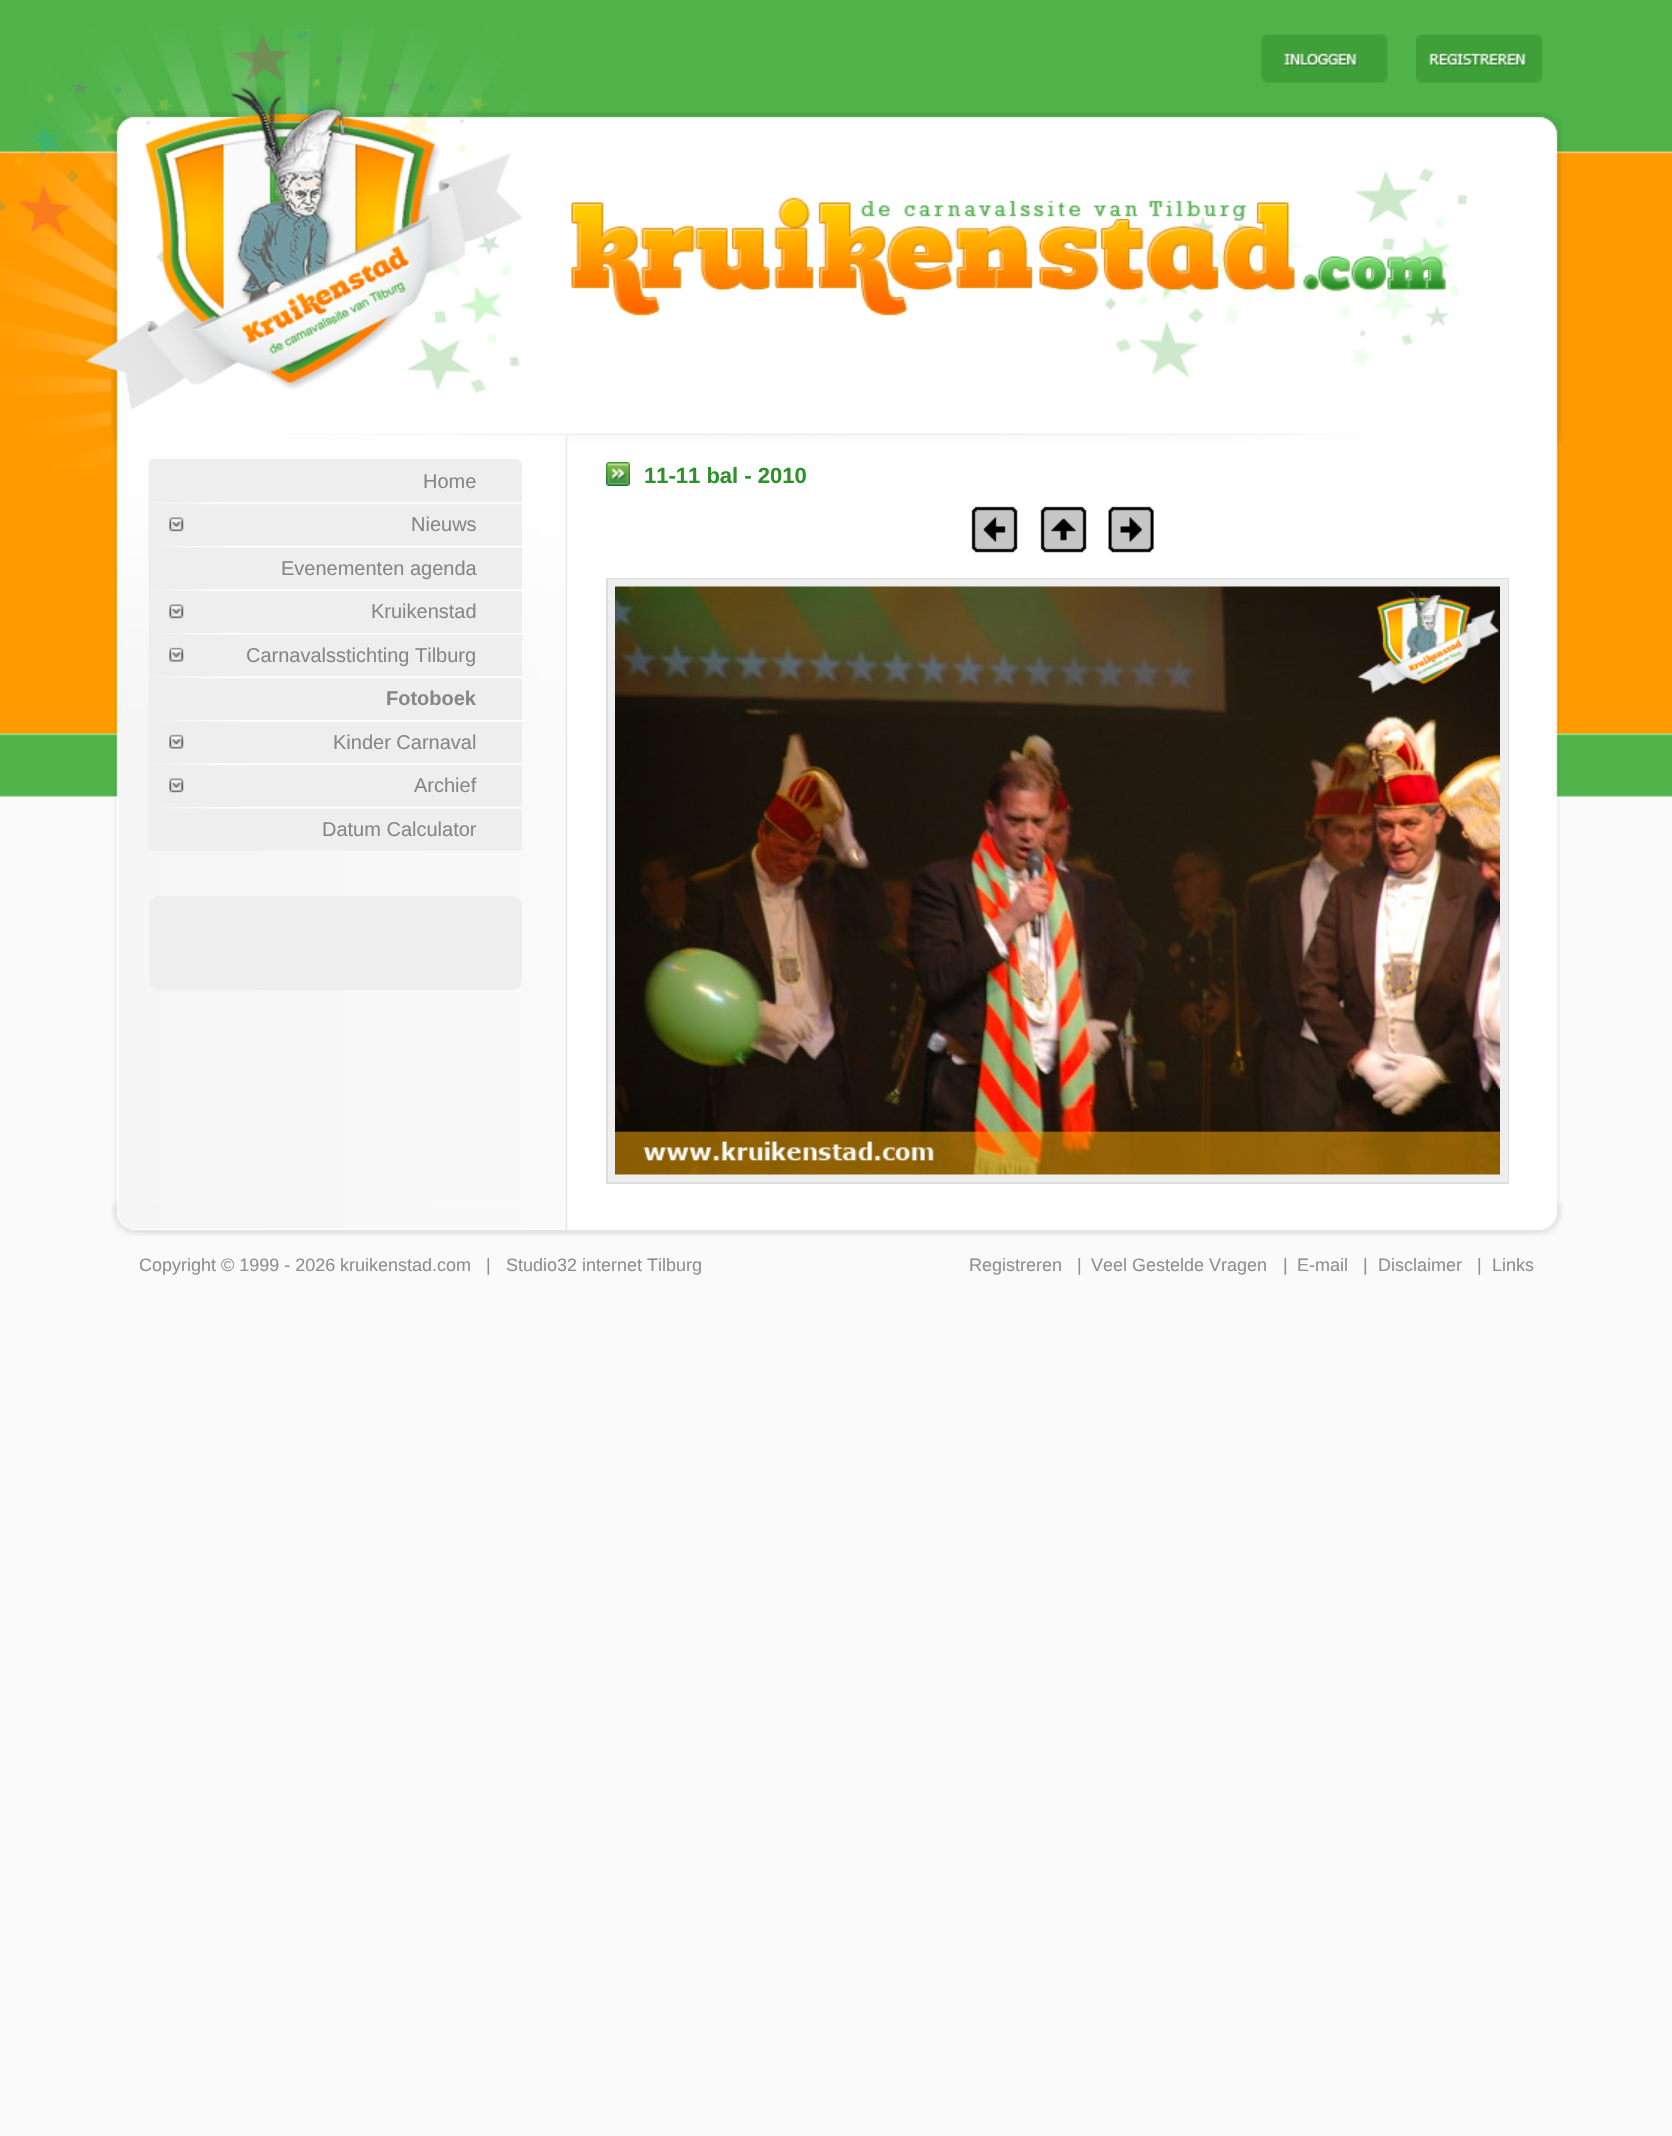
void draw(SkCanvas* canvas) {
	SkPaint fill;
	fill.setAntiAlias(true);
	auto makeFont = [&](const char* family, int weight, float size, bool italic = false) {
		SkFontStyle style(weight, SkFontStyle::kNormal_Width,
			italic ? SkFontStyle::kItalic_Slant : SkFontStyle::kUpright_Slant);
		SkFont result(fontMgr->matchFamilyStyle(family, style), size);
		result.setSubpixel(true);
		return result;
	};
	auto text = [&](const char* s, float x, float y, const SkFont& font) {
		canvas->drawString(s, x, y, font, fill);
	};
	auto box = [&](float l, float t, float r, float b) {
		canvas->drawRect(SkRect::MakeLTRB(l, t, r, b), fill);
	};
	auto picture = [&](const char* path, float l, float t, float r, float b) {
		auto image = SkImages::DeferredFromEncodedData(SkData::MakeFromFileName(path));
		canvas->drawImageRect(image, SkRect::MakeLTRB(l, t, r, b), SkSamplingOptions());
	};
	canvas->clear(0xFFFAFAFA);
	picture("image0.png", 0, 0, 1672, 798);
	picture("image1.png", 1261, 34, 1388, 83);
	picture("image2.png", 1416, 34, 1542, 83);
	picture("image3.png", 111, 111, 1563, 444);
	picture("image4.png", 0, 25, 528, 469);
	picture("image5.png", 114, 444, 1560, 1202);
	picture("image6.png", 119, 444, 566, 742);
	picture("image7.png", 148, 459, 522, 503);
	picture("image8.png", 148, 502, 522, 546);
	picture("image9.png", 148, 546, 522, 590);
	picture("image10.png", 148, 589, 522, 633);
	picture("image11.png", 148, 633, 522, 677);
	picture("image12.png", 148, 676, 522, 720);
	picture("image13.png", 148, 720, 522, 764);
	picture("image14.png", 148, 763, 522, 807);
	picture("image15.png", 148, 807, 522, 851);
	fill.setColor(0xFFEEEEEE);
	box(149, 908, 522, 978);
	box(160, 897, 161, 908);
	fill.setColor(0xF7EEEEEE);
	box(159, 896, 161, 898);
	fill.setColor(0xFFEEEEEE);
	box(157, 897, 160, 908);
	fill.setColor(0x94EEEEEE);
	box(156, 896, 158, 898);
	fill.setColor(0xD6EEEEEE);
	box(158, 896, 160, 897);
	fill.setColor(0xFFF1F1F1);
	box(153, 897, 155, 899);
	fill.setColor(0xFFEEEEEE);
	box(155, 897, 157, 908);
	box(153, 899, 155, 908);
	fill.setColor(0xBFEEEEEE);
	box(152, 899, 154, 900);
	fill.setColor(0xFFF1F1F1);
	box(150, 900, 152, 902);
	fill.setColor(0xFFEEEEEE);
	box(152, 900, 153, 908);
	box(150, 902, 152, 908);
	fill.setColor(0x94EEEEEE);
	box(149, 903, 151, 905);
	fill.setColor(0xD6EEEEEE);
	box(149, 905, 151, 906);
	fill.setColor(0xF7EEEEEE);
	box(149, 906, 151, 908);
	fill.setColor(0xFFEEEEEE);
	box(161, 896, 510, 908);
	fill.setColor(0xF7EEEEEE);
	box(510, 896, 512, 897);
	fill.setColor(0xFFEEEEEE);
	box(510, 897, 513, 908);
	fill.setColor(0xD6EEEEEE);
	box(512, 896, 514, 898);
	fill.setColor(0x94EEEEEE);
	box(513, 896, 515, 897);
	fill.setColor(0xFFEEEEEE);
	box(513, 897, 515, 908);
	box(515, 897, 517, 899);
	fill.setColor(0x96EEEEEE);
	box(516, 897, 518, 899);
	fill.setColor(0xFFEEEEEE);
	box(515, 899, 518, 908);
	fill.setColor(0xBFEEEEEE);
	box(518, 899, 520, 900);
	fill.setColor(0xFFEEEEEE);
	box(518, 900, 520, 908);
	fill.setColor(0x96EEEEEE);
	box(519, 900, 521, 902);
	fill.setColor(0xFFEEEEEE);
	box(519, 902, 521, 903);
	box(520, 903, 521, 908);
	fill.setColor(0xFFF3F3F3);
	box(521, 903, 522, 905);
	fill.setColor(0xFFEEEEEE);
	box(521, 906, 522, 908);
	fill.setColor(0xD6EEEEEE);
	box(521, 905, 522, 907);
	fill.setColor(0xFFEEEEEE);
	box(150, 978, 152, 985);
	fill.setColor(0xF7EEEEEE);
	box(149, 978, 151, 980);
	fill.setColor(0xFFEEEEEE);
	box(152, 978, 153, 986);
	box(153, 978, 155, 987);
	box(155, 978, 157, 989);
	box(157, 978, 161, 989);
	fill.setColor(0xD6EEEEEE);
	box(149, 980, 151, 982);
	fill.setColor(0x94EEEEEE);
	box(149, 982, 151, 983);
	fill.setColor(0x96EEEEEE);
	box(150, 985, 152, 986);
	fill.setColor(0xFFF1F1F1);
	box(153, 987, 155, 989);
	fill.setColor(0xBFEEEEEE);
	box(152, 986, 154, 988);
	fill.setColor(0xFFF1F1F1);
	box(156, 989, 158, 990);
	fill.setColor(0xFFEEEEEE);
	box(159, 989, 161, 990);
	fill.setColor(0xD6EEEEEE);
	box(158, 989, 160, 990);
	fill.setColor(0xFFEEEEEE);
	box(161, 978, 512, 990);
	box(512, 978, 515, 989);
	box(515, 978, 518, 987);
	box(518, 978, 520, 986);
	box(520, 978, 521, 983);
	box(521, 978, 522, 980);
	fill.setColor(0xFFF0F0F0);
	box(521, 980, 522, 982);
	fill.setColor(0x94EEEEEE);
	box(521, 981, 522, 983);
	fill.setColor(0xFFEEEEEE);
	box(519, 983, 521, 985);
	fill.setColor(0x96EEEEEE);
	box(519, 985, 521, 986);
	fill.setColor(0xFFEEEEEE);
	box(515, 987, 517, 989);
	fill.setColor(0xFFF1F1F1);
	box(518, 986, 520, 988);
	fill.setColor(0x96EEEEEE);
	box(516, 987, 518, 989);
	fill.setColor(0xFFF0F0F0);
	box(512, 989, 514, 990);
	fill.setColor(0x94EEEEEE);
	box(513, 989, 515, 990);
	picture("image16.png", 606, 462, 630, 486);
	picture("image17.png", 971, 506, 1018, 553);
	picture("image18.png", 1040, 506, 1087, 553);
	picture("image19.png", 1108, 506, 1154, 553);
	fill.setStyle(SkPaint::kStroke_Style);
	fill.setStrokeWidth(2);
	fill.setColor(0xFFDDDDDD);
	canvas->drawRect(SkRect::MakeLTRB(607, 579, 1508, 1183), fill);
	fill.setStrokeWidth(8);
	fill.setColor(0xFFEEEEEE);
	canvas->drawRect(SkRect::MakeLTRB(612, 583, 1504, 1178), fill);
	picture("image20.png", 615, 586, 1500, 1175);
	picture("image21.png", 111, 1201, 1563, 1236);
	auto font1 = makeFont("Liberation Sans", 400, 20);
	fill.setStyle(SkPaint::kFill_Style);
	fill.setColor(0xFF878787);
	text("Home", 423, 488, font1);
	text("Nieuws", 411, 531, font1);
	text("Evenementen agenda", 281, 575, font1);
	text("Kruikenstad", 371, 618, font1);
	text("Carnavalsstichting Tilburg", 246, 662, font1);
	auto font2 = makeFont("Liberation Sans", 700, 20);
	text("Fotoboek", 386, 705, font2);
	text("Kinder Carnaval", 333, 749, font1);
	text("Archief", 414, 792, font1);
	text("Datum Calculator", 322, 836, font1);
	auto font3 = makeFont("Liberation Sans", 700, 22);
	fill.setColor(0xFF2D9229);
	text("11-11 bal - 2010", 644, 483, font3);
	canvas->save();
	canvas->clipRect(SkRect::MakeLTRB(140, 1254, 807, 1292));
	auto font4 = makeFont("Liberation Sans", 400, 18);
	fill.setColor(0xFF8F8F8F);
	text("Copyright © 1999 - 2026", 139, 1271, font4);
	canvas->restore();
	text("kruikenstad.com   |", 340, 1271, font4);
	text("Studio32 internet Tilburg", 506, 1271, font4);
	text("Registreren", 969, 1271, font4);
	text("|", 1077, 1271, font4);
	text("Veel Gestelde Vragen", 1091, 1271, font4);
	text("|", 1283, 1271, font4);
	text("E-mail", 1297, 1271, font4);
	text("|", 1363, 1271, font4);
	text("Disclaimer", 1378, 1271, font4);
	text("|", 1477, 1271, font4);
	text("Links", 1492, 1271, font4);
}
